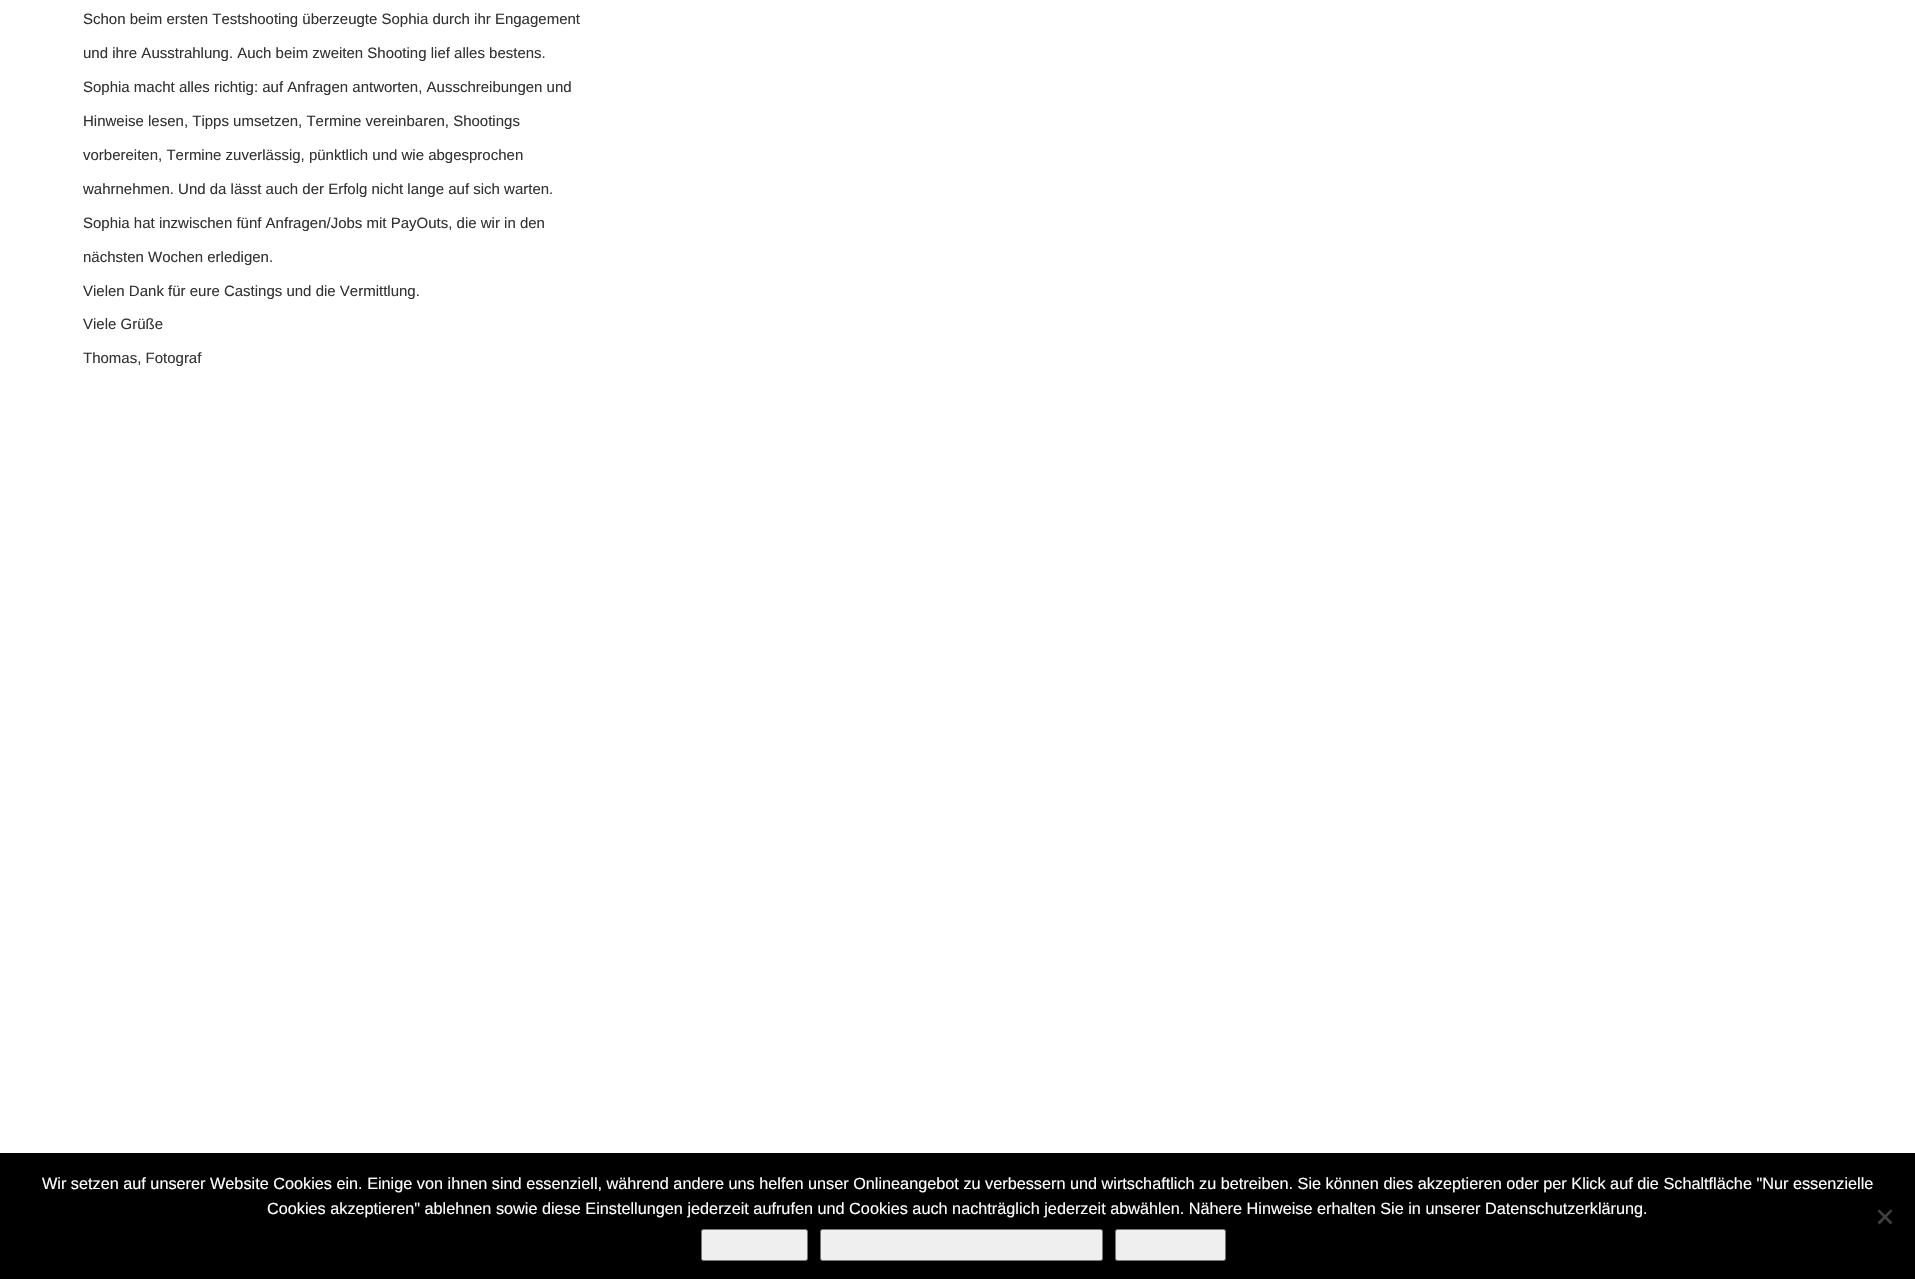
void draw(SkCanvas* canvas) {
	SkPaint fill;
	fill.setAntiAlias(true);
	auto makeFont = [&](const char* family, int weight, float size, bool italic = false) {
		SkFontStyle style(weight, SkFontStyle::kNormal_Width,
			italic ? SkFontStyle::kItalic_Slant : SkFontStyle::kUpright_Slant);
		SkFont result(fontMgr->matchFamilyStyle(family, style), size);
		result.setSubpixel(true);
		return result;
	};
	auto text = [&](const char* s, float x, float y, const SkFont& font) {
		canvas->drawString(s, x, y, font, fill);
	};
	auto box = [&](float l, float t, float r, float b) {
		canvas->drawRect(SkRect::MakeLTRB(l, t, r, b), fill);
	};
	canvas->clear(0xFFFFFFFF);
	fill.setColor(0xFF000000);
	box(0, 1153, 1915, 1279);
	fill.setColor(0xFF404040);
	canvas->drawPath(SkPathBuilder().moveTo(1890.5f, 1209.5f).lineTo(1892.5f, 1211).lineTo(1879.5f, 1224.5f).lineTo(1877.5f, 1222.5f).close().detach(), fill);
	canvas->drawPath(SkPathBuilder().moveTo(1877.5f, 1211).lineTo(1879.5f, 1209.5f).lineTo(1892.5f, 1222.5f).lineTo(1890.5f, 1224.5f).close().detach(), fill);
	fill.setColor(0xFFEFEFEF);
	canvas->drawRoundRect(SkRect::MakeLTRB(701.5f, 1229.5f, 807.5f, 1260.5f), 2, 2, fill);
	fill.setStyle(SkPaint::kStroke_Style);
	fill.setStrokeWidth(1);
	fill.setColor(0xFF767676);
	canvas->drawRoundRect(SkRect::MakeLTRB(701.5f, 1229.5f, 807.5f, 1260.5f), 2, 2, fill);
	fill.setStyle(SkPaint::kFill_Style);
	fill.setColor(0xFFEFEFEF);
	canvas->drawRoundRect(SkRect::MakeLTRB(820.5f, 1229.5f, 1102.5f, 1260.5f), 2, 2, fill);
	fill.setStyle(SkPaint::kStroke_Style);
	fill.setColor(0xFF767676);
	canvas->drawRoundRect(SkRect::MakeLTRB(820.5f, 1229.5f, 1102.5f, 1260.5f), 2, 2, fill);
	fill.setStyle(SkPaint::kFill_Style);
	fill.setColor(0xFFEFEFEF);
	canvas->drawRoundRect(SkRect::MakeLTRB(1115.5f, 1229.5f, 1225.5f, 1260.5f), 2, 2, fill);
	fill.setStyle(SkPaint::kStroke_Style);
	fill.setColor(0xFF767676);
	canvas->drawRoundRect(SkRect::MakeLTRB(1115.5f, 1229.5f, 1225.5f, 1260.5f), 2, 2, fill);
	auto font1 = makeFont("Liberation Sans", 400, 15);
	fill.setStyle(SkPaint::kFill_Style);
	fill.setColor(0xFF333333);
	text("Schon beim ersten Testshooting überzeugte Sophia durch ihr Engagement", 83, 24, font1);
	text("und ihre Ausstrahlung. Auch beim zweiten Shooting lief alles bestens.", 83, 58, font1);
	text("Sophia macht alles richtig: auf Anfragen antworten, Ausschreibungen und", 83, 92, font1);
	text("Hinweise lesen, Tipps umsetzen, Termine vereinbaren, Shootings", 83, 126, font1);
	text("vorbereiten, Termine zuverlässig, pünktlich und wie abgesprochen", 83, 160, font1);
	text("wahrnehmen. Und da lässt auch der Erfolg nicht lange auf sich warten.", 83, 194, font1);
	text("Sophia hat inzwischen fünf Anfragen/Jobs mit PayOuts, die wir in den", 83, 228, font1);
	text("nächsten Wochen erledigen.", 83, 262, font1);
	text("Vielen Dank für eure Castings und die Vermittlung.", 83, 296, font1);
	text("Viele Grüße", 83, 329, font1);
	text("Thomas, Fotograf", 83, 363, font1);
	auto font2 = makeFont("Liberation Sans", 400, 16.25f);
	fill.setColor(0xFFFFFFFF);
	text("Wir setzen auf unserer Website Cookies ein. Einige von ihnen sind essenziell, während andere uns helfen unser Onlineangebot zu verbessern und wirtschaftlich zu betreiben. Sie können dies akzeptieren oder per Klick auf die Schaltfläche \"Nur essenzielle", 42, 1189, font2);
	text("Cookies akzeptieren\" ablehnen sowie diese Einstellungen jederzeit aufrufen und Cookies auch nachträglich jederzeit abwählen. Nähere Hinweise erhalten Sie in unserer Datenschutzerklärung.", 267, 1214, font2);
}
